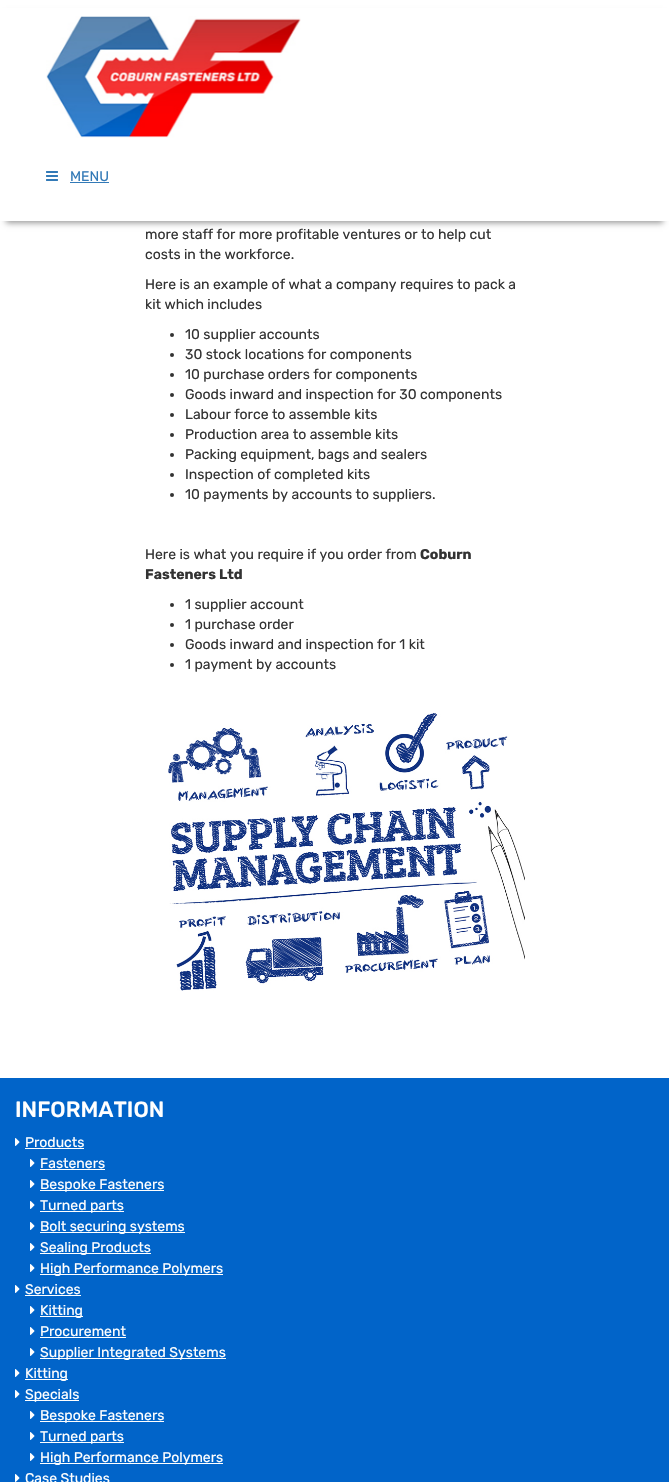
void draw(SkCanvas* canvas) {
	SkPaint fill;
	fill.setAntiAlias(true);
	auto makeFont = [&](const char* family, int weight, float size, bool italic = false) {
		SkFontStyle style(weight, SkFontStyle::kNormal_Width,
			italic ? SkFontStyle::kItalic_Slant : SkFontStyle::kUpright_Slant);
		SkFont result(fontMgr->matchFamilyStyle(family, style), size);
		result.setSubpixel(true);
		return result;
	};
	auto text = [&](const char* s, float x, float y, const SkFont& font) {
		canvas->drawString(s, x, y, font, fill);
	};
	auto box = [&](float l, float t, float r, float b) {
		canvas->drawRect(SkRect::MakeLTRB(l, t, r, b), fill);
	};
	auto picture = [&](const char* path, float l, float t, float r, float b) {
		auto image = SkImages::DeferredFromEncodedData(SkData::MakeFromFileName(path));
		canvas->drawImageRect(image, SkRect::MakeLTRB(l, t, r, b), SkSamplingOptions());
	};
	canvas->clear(0xFFFFFFFF);
	fill.setColor(0xFF999999);
	fill.setMaskFilter(SkMaskFilter::MakeBlur(kNormal_SkBlurStyle, 3));
	canvas->drawRect(SkRect::MakeLTRB(6, 14, 663, 223), fill);
	fill.setMaskFilter(nullptr);
	fill.setColor(0xFFFFFFFF);
	box(0, 8, 669, 221);
	picture("image0.png", 46, 16, 301, 138);
	picture("image1.png", 46, 171, 58, 181);
	fill.setColor(0xFF337AB7);
	box(70, 182, 109, 183);
	fill.setColor(0xFF333333);
	canvas->drawCircle(172, 335, 2, fill);
	canvas->drawCircle(172, 355, 2, fill);
	canvas->drawCircle(172, 375, 2, fill);
	canvas->drawCircle(172, 395, 2, fill);
	canvas->drawCircle(172, 415, 2, fill);
	canvas->drawCircle(172, 435, 2, fill);
	canvas->drawCircle(172, 455, 2, fill);
	canvas->drawCircle(172, 475, 2, fill);
	canvas->drawCircle(172, 495, 2, fill);
	canvas->drawCircle(172, 605, 2, fill);
	canvas->drawCircle(172, 625, 2, fill);
	canvas->drawCircle(172, 645, 2, fill);
	canvas->drawCircle(172, 665, 2, fill);
	picture("image2.png", 168, 713, 525, 991);
	fill.setColor(0xFF0164C9);
	box(0, 1078, 669, 1482);
	picture("image3.png", 15, 1138, 20, 1146);
	fill.setColor(0xFFFFFFFF);
	box(25, 1148, 84, 1149);
	picture("image3.png", 30, 1159, 35, 1167);
	box(40, 1169, 105, 1170);
	picture("image3.png", 30, 1180, 35, 1188);
	box(40, 1190, 164, 1191);
	picture("image3.png", 30, 1201, 35, 1209);
	box(40, 1211, 124, 1212);
	picture("image3.png", 30, 1222, 35, 1230);
	box(40, 1232, 185, 1233);
	picture("image3.png", 30, 1243, 35, 1251);
	box(40, 1253, 151, 1254);
	picture("image3.png", 30, 1264, 35, 1272);
	box(40, 1274, 223, 1275);
	picture("image3.png", 15, 1285, 20, 1293);
	box(25, 1295, 81, 1296);
	picture("image3.png", 30, 1306, 35, 1314);
	box(40, 1316, 83, 1317);
	picture("image3.png", 30, 1327, 35, 1335);
	box(40, 1337, 126, 1338);
	picture("image3.png", 30, 1348, 35, 1356);
	box(40, 1358, 226, 1359);
	picture("image3.png", 15, 1369, 20, 1377);
	box(25, 1379, 68, 1380);
	picture("image3.png", 15, 1390, 20, 1398);
	box(25, 1400, 79, 1401);
	picture("image3.png", 30, 1411, 35, 1419);
	box(40, 1421, 164, 1422);
	picture("image3.png", 30, 1432, 35, 1440);
	box(40, 1442, 124, 1443);
	picture("image3.png", 30, 1453, 35, 1461);
	box(40, 1463, 223, 1464);
	picture("image3.png", 15, 1474, 20, 1482);
	auto font1 = makeFont("Rubik", 400, 14);
	fill.setColor(0xFF337AB7);
	text("MENU", 70, 181, font1);
	fill.setColor(0xFF333333);
	text("more staff for more profitable ventures or to help cut", 145, 239, font1);
	text("costs in the workforce.", 145, 259, font1);
	text("Here is an example of what a company requires to pack a", 145, 289, font1);
	text("kit which includes", 145, 309, font1);
	text("10 supplier accounts", 185, 339, font1);
	text("30 stock locations for components", 185, 359, font1);
	text("10 purchase orders for components", 185, 379, font1);
	text("Goods inward and inspection for 30 components", 185, 399, font1);
	text("Labour force to assemble kits", 185, 419, font1);
	text("Production area to assemble kits", 185, 439, font1);
	text("Packing equipment, bags and sealers", 185, 459, font1);
	text("Inspection of completed kits", 185, 479, font1);
	text("10 payments by accounts to suppliers.", 185, 499, font1);
	text("Here is what you require if you order from", 145, 559, font1);
	auto font2 = makeFont("Rubik", 700, 14);
	text("Coburn", 420, 559, font2);
	text("Fasteners Ltd", 145, 579, font2);
	text("1 supplier account", 185, 609, font1);
	text("1 purchase order", 185, 629, font1);
	text("Goods inward and inspection for 1 kit", 185, 649, font1);
	text("1 payment by accounts", 185, 669, font1);
	auto font3 = makeFont("Rubik", 500, 22);
	fill.setColor(0xFFFFFFFF);
	text("INFORMATION", 15, 1117, font3);
	text("Products", 25, 1147, font1);
	text("Fasteners", 40, 1168, font1);
	text("Bespoke Fasteners", 40, 1189, font1);
	text("Turned parts", 40, 1210, font1);
	text("Bolt securing systems", 40, 1231, font1);
	text("Sealing Products", 40, 1252, font1);
	text("High Performance Polymers", 40, 1273, font1);
	text("Services", 25, 1294, font1);
	text("Kitting", 40, 1315, font1);
	text("Procurement", 40, 1336, font1);
	text("Supplier Integrated Systems", 40, 1357, font1);
	text("Kitting", 25, 1378, font1);
	text("Specials", 25, 1399, font1);
	text("Bespoke Fasteners", 40, 1420, font1);
	text("Turned parts", 40, 1441, font1);
	text("High Performance Polymers", 40, 1462, font1);
	text("Case Studies", 25, 1483, font1);
}
